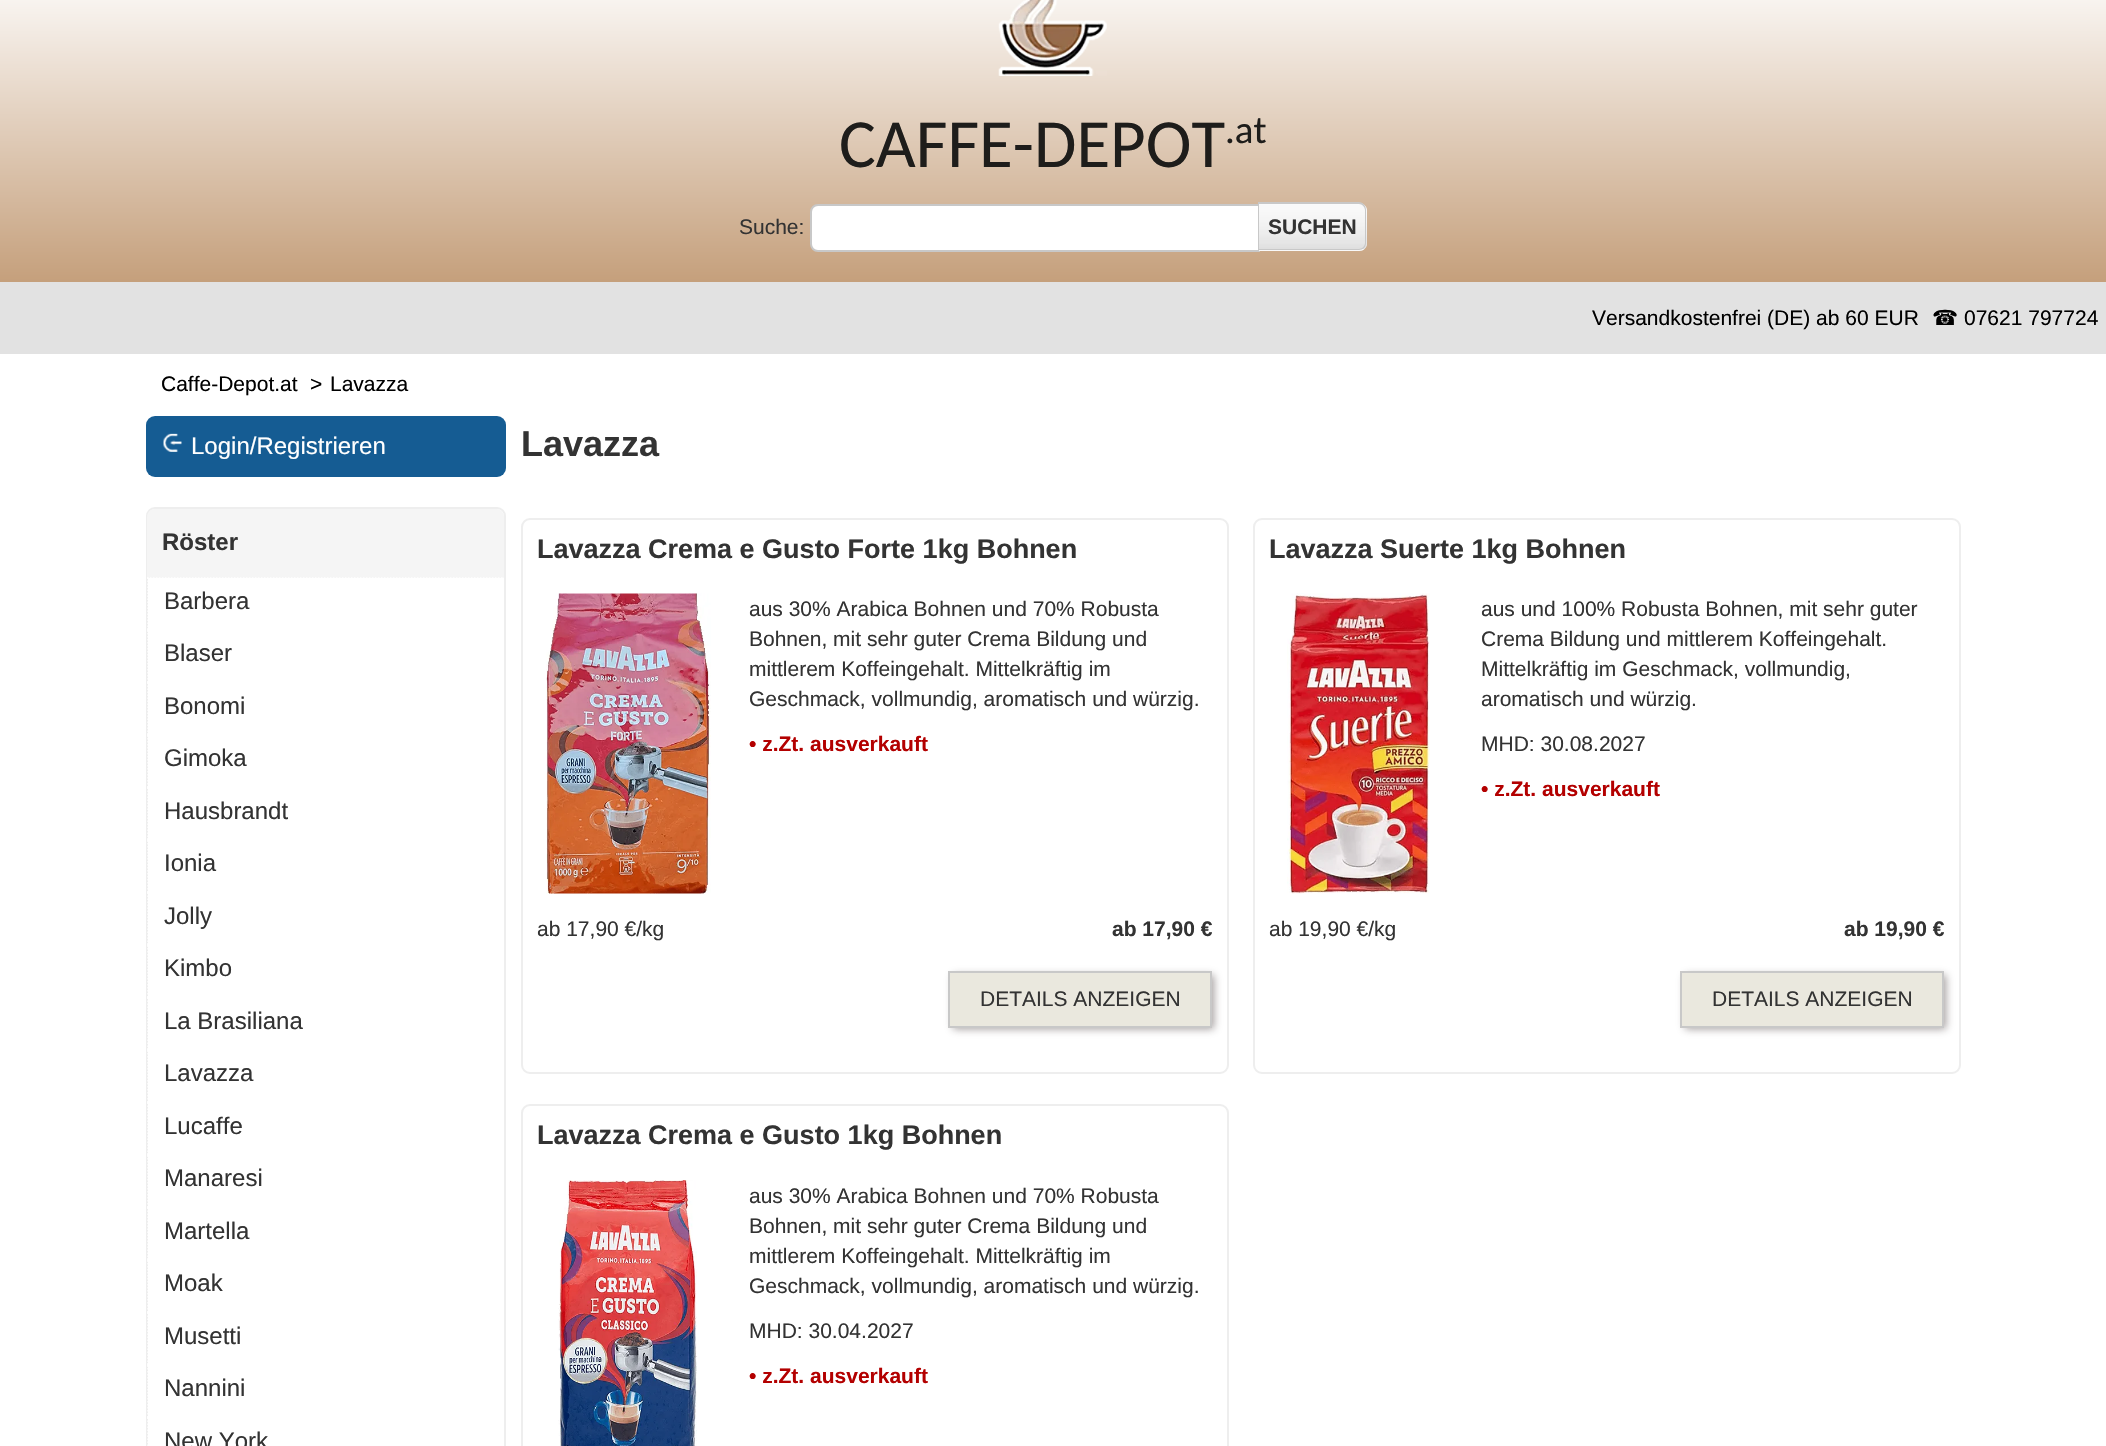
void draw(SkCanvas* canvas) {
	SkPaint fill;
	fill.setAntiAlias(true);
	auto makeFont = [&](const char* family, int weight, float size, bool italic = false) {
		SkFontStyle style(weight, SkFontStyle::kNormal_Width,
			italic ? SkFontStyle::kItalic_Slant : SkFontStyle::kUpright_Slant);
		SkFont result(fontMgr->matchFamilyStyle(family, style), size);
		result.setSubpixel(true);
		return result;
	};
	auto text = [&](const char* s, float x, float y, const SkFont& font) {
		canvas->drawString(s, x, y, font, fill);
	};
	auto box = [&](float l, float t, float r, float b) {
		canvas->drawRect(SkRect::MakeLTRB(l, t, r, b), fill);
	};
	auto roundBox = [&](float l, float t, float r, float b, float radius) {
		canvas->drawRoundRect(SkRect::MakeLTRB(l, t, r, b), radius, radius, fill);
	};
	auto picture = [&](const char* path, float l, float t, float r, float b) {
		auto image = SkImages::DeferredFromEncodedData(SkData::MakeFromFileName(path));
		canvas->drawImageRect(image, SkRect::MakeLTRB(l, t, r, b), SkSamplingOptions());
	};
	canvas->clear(0xFFFFFFFF);
	{
		const SkColor colors[] = {0xFFFFFFFF, 0xFFB88A5E};
		const float stops[] = {0, 1};
		const SkPoint ends[] = {{1053, -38}, {1053, 354}};
		fill.setShader(SkGradientShader::MakeLinear(ends, colors, stops, 2, SkTileMode::kClamp));
		fill.setAlpha(255);
	}
	box(0, 0, 2106, 282);
	picture("image0.png", 998, 0, 1107, 76);
	fill.setShader(nullptr);
	fill.setColor(0xFFFFFFFF);
	canvas->drawPath(SkPathBuilder().moveTo(818, 205).lineTo(1259, 205).lineTo(1259, 251).lineTo(818, 251).cubicTo(814, 251, 811, 248, 811, 244).lineTo(811, 212).cubicTo(811, 208, 814, 205, 818, 205).close().detach(), fill);
	fill.setStyle(SkPaint::kStroke_Style);
	fill.setStrokeWidth(2);
	fill.setColor(0xFFC8C8C8);
	canvas->drawPath(SkPathBuilder().moveTo(818, 205).lineTo(1259, 205).lineTo(1259, 251).lineTo(818, 251).cubicTo(814, 251, 811, 248, 811, 244).lineTo(811, 212).cubicTo(811, 208, 814, 205, 818, 205).close().detach(), fill);
	fill.setStyle(SkPaint::kFill_Style);
	fill.setColor(0xFFF5F5F5);
	canvas->drawPath(SkPathBuilder().moveTo(1259, 203).lineTo(1359, 203).cubicTo(1363.5f, 203, 1367, 206.5f, 1367, 211).lineTo(1367, 243).cubicTo(1367, 247.5f, 1363.5f, 251, 1359, 251).lineTo(1259, 251).close().detach(), fill);
	canvas->save();
	canvas->clipPath(SkPathBuilder().moveTo(1259, 203).lineTo(1359, 203).cubicTo(1363.5f, 203, 1367, 206.5f, 1367, 211).lineTo(1367, 243).cubicTo(1367, 247.5f, 1363.5f, 251, 1359, 251).lineTo(1259, 251).close().detach(), true);
	{
		const SkColor colors[] = {0x80FFFFFF, 0xFFDFDFDF};
		const float stops[] = {0, 1};
		const SkPoint ends[] = {{1312, 204}, {1312, 249}};
		fill.setShader(SkGradientShader::MakeLinear(ends, colors, stops, 2, SkTileMode::kClamp));
		fill.setAlpha(255);
	}
	box(1259, 204, 1367, 249);
	{
		const SkColor colors[] = {0x80FFFFFF, 0xFFDFDFDF};
		const float stops[] = {0, 1};
		const SkPoint ends[] = {{1312, 249}, {1312, 294}};
		fill.setShader(SkGradientShader::MakeLinear(ends, colors, stops, 2, SkTileMode::kClamp));
		fill.setAlpha(255);
	}
	box(1259, 249, 1367, 251);
	canvas->restore();
	fill.setShader(nullptr);
	fill.setColor(0xFFC8C8C8);
	canvas->drawPath(SkPathBuilder(SkPathFillType::kEvenOdd).moveTo(1258, 202).lineTo(1359, 202).cubicTo(1363, 202, 1366, 206, 1366, 210).lineTo(1366, 243).cubicTo(1366, 247, 1363, 250, 1359, 250).lineTo(1258, 250).close().moveTo(1258, 204).lineTo(1359, 204).cubicTo(1362, 204, 1365, 207, 1365, 210).lineTo(1365, 243).cubicTo(1365, 246, 1362, 249, 1359, 249).lineTo(1258, 249).close().detach(), fill);
	fill.setColor(0xFFE2E2E2);
	box(0, 282, 2106, 354);
	fill.setColor(0xFF155C93);
	roundBox(146, 416, 506, 477, 9);
	picture("image1.png", 163, 433, 182, 452);
	fill.setStyle(SkPaint::kStroke_Style);
	fill.setColor(0xFFEEEEEE);
	canvas->drawRoundRect(SkRect::MakeLTRB(147, 508, 505, 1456), 8, 8, fill);
	fill.setStyle(SkPaint::kFill_Style);
	fill.setColor(0xFFF5F5F5);
	canvas->drawPath(SkPathBuilder().moveTo(155, 509).lineTo(496, 509).cubicTo(500.5f, 509, 504, 512.5f, 504, 517).lineTo(504, 578).lineTo(147, 578).lineTo(147, 517).cubicTo(147, 512.5f, 150.5f, 509, 155, 509).close().detach(), fill);
	fill.setStyle(SkPaint::kStroke_Style);
	fill.setStrokeWidth(1.5f);
	fill.setColor(0xFFFFFFFF);
	fill.setPathEffect(SkDashPathEffect::Make({{1.5f, 1.5f}}, 0));
	canvas->drawPath(SkPathBuilder().moveTo(147, 578).lineTo(504, 578).detach(), fill);
	fill.setPathEffect(nullptr);
	fill.setPathEffect(SkDashPathEffect::Make({{1.5f, 1.5f}}, 0));
	canvas->drawPath(SkPathBuilder().moveTo(503, 577.5f).lineTo(503, 630).detach(), fill);
	fill.setPathEffect(nullptr);
	fill.setPathEffect(SkDashPathEffect::Make({{1.5f, 1.5f}}, 0));
	canvas->drawPath(SkPathBuilder().moveTo(147, 629).lineTo(504, 629).detach(), fill);
	fill.setPathEffect(nullptr);
	fill.setPathEffect(SkDashPathEffect::Make({{1.5f, 1.5f}}, 0));
	canvas->drawPath(SkPathBuilder().moveTo(148, 577.5f).lineTo(148, 630).detach(), fill);
	fill.setPathEffect(nullptr);
	fill.setPathEffect(SkDashPathEffect::Make({{1.5f, 1.5f}}, 0));
	canvas->drawPath(SkPathBuilder().moveTo(147, 631).lineTo(504, 631).detach(), fill);
	fill.setPathEffect(nullptr);
	fill.setPathEffect(SkDashPathEffect::Make({{1.5f, 1.5f}}, 0));
	canvas->drawPath(SkPathBuilder().moveTo(147, 682).lineTo(504, 682).detach(), fill);
	fill.setPathEffect(nullptr);
	fill.setPathEffect(SkDashPathEffect::Make({{1.5f, 1.5f}}, 0));
	canvas->drawPath(SkPathBuilder().moveTo(148, 630).lineTo(148, 682.5f).detach(), fill);
	fill.setPathEffect(nullptr);
	fill.setPathEffect(SkDashPathEffect::Make({{1.5f, 1.5f}}, 0));
	canvas->drawPath(SkPathBuilder().moveTo(147, 683).lineTo(504, 683).detach(), fill);
	fill.setPathEffect(nullptr);
	fill.setPathEffect(SkDashPathEffect::Make({{1.5f, 1.5f}}, 0));
	canvas->drawPath(SkPathBuilder().moveTo(147, 734).lineTo(504, 734).detach(), fill);
	fill.setPathEffect(nullptr);
	fill.setPathEffect(SkDashPathEffect::Make({{1.5f, 1.5f}}, 0));
	canvas->drawPath(SkPathBuilder().moveTo(148, 682.5f).lineTo(148, 735).detach(), fill);
	fill.setPathEffect(nullptr);
	fill.setPathEffect(SkDashPathEffect::Make({{1.5f, 1.5f}}, 0));
	canvas->drawPath(SkPathBuilder().moveTo(147, 736).lineTo(504, 736).detach(), fill);
	fill.setPathEffect(nullptr);
	fill.setPathEffect(SkDashPathEffect::Make({{1.5f, 1.5f}}, 0));
	canvas->drawPath(SkPathBuilder().moveTo(147, 787).lineTo(504, 787).detach(), fill);
	fill.setPathEffect(nullptr);
	fill.setPathEffect(SkDashPathEffect::Make({{1.5f, 1.5f}}, 0));
	canvas->drawPath(SkPathBuilder().moveTo(148, 735).lineTo(148, 787.5f).detach(), fill);
	fill.setPathEffect(nullptr);
	fill.setPathEffect(SkDashPathEffect::Make({{1.5f, 1.5f}}, 0));
	canvas->drawPath(SkPathBuilder().moveTo(147, 788).lineTo(504, 788).detach(), fill);
	fill.setPathEffect(nullptr);
	fill.setPathEffect(SkDashPathEffect::Make({{1.5f, 1.5f}}, 0));
	canvas->drawPath(SkPathBuilder().moveTo(147, 839).lineTo(504, 839).detach(), fill);
	fill.setPathEffect(nullptr);
	fill.setPathEffect(SkDashPathEffect::Make({{1.5f, 1.5f}}, 0));
	canvas->drawPath(SkPathBuilder().moveTo(148, 787.5f).lineTo(148, 840).detach(), fill);
	fill.setPathEffect(nullptr);
	fill.setPathEffect(SkDashPathEffect::Make({{1.5f, 1.5f}}, 0));
	canvas->drawPath(SkPathBuilder().moveTo(147, 841).lineTo(504, 841).detach(), fill);
	fill.setPathEffect(nullptr);
	fill.setPathEffect(SkDashPathEffect::Make({{1.5f, 1.5f}}, 0));
	canvas->drawPath(SkPathBuilder().moveTo(147, 892).lineTo(504, 892).detach(), fill);
	fill.setPathEffect(nullptr);
	fill.setPathEffect(SkDashPathEffect::Make({{1.5f, 1.5f}}, 0));
	canvas->drawPath(SkPathBuilder().moveTo(148, 840).lineTo(148, 892.5f).detach(), fill);
	fill.setPathEffect(nullptr);
	fill.setPathEffect(SkDashPathEffect::Make({{1.5f, 1.5f}}, 0));
	canvas->drawPath(SkPathBuilder().moveTo(147, 893).lineTo(504, 893).detach(), fill);
	fill.setPathEffect(nullptr);
	fill.setPathEffect(SkDashPathEffect::Make({{1.5f, 1.5f}}, 0));
	canvas->drawPath(SkPathBuilder().moveTo(147, 944).lineTo(504, 944).detach(), fill);
	fill.setPathEffect(nullptr);
	fill.setPathEffect(SkDashPathEffect::Make({{1.5f, 1.5f}}, 0));
	canvas->drawPath(SkPathBuilder().moveTo(148, 892.5f).lineTo(148, 945).detach(), fill);
	fill.setPathEffect(nullptr);
	fill.setPathEffect(SkDashPathEffect::Make({{1.5f, 1.5f}}, 0));
	canvas->drawPath(SkPathBuilder().moveTo(147, 946).lineTo(504, 946).detach(), fill);
	fill.setPathEffect(nullptr);
	fill.setPathEffect(SkDashPathEffect::Make({{1.5f, 1.5f}}, 0));
	canvas->drawPath(SkPathBuilder().moveTo(147, 997).lineTo(504, 997).detach(), fill);
	fill.setPathEffect(nullptr);
	fill.setPathEffect(SkDashPathEffect::Make({{1.5f, 1.5f}}, 0));
	canvas->drawPath(SkPathBuilder().moveTo(148, 945).lineTo(148, 997.5f).detach(), fill);
	fill.setPathEffect(nullptr);
	fill.setPathEffect(SkDashPathEffect::Make({{1.5f, 1.5f}}, 0));
	canvas->drawPath(SkPathBuilder().moveTo(147, 998).lineTo(504, 998).detach(), fill);
	fill.setPathEffect(nullptr);
	fill.setPathEffect(SkDashPathEffect::Make({{1.5f, 1.5f}}, 0));
	canvas->drawPath(SkPathBuilder().moveTo(147, 1049).lineTo(504, 1049).detach(), fill);
	fill.setPathEffect(nullptr);
	fill.setPathEffect(SkDashPathEffect::Make({{1.5f, 1.5f}}, 0));
	canvas->drawPath(SkPathBuilder().moveTo(148, 997.5f).lineTo(148, 1050).detach(), fill);
	fill.setPathEffect(nullptr);
	fill.setPathEffect(SkDashPathEffect::Make({{1.5f, 1.5f}}, 0));
	canvas->drawPath(SkPathBuilder().moveTo(147, 1051).lineTo(504, 1051).detach(), fill);
	fill.setPathEffect(nullptr);
	fill.setPathEffect(SkDashPathEffect::Make({{1.5f, 1.5f}}, 0));
	canvas->drawPath(SkPathBuilder().moveTo(147, 1102).lineTo(504, 1102).detach(), fill);
	fill.setPathEffect(nullptr);
	fill.setPathEffect(SkDashPathEffect::Make({{1.5f, 1.5f}}, 0));
	canvas->drawPath(SkPathBuilder().moveTo(148, 1050).lineTo(148, 1102.5f).detach(), fill);
	fill.setPathEffect(nullptr);
	fill.setPathEffect(SkDashPathEffect::Make({{1.5f, 1.5f}}, 0));
	canvas->drawPath(SkPathBuilder().moveTo(147, 1103).lineTo(504, 1103).detach(), fill);
	fill.setPathEffect(nullptr);
	fill.setPathEffect(SkDashPathEffect::Make({{1.5f, 1.5f}}, 0));
	canvas->drawPath(SkPathBuilder().moveTo(147, 1154).lineTo(504, 1154).detach(), fill);
	fill.setPathEffect(nullptr);
	fill.setPathEffect(SkDashPathEffect::Make({{1.5f, 1.5f}}, 0));
	canvas->drawPath(SkPathBuilder().moveTo(148, 1102.5f).lineTo(148, 1155).detach(), fill);
	fill.setPathEffect(nullptr);
	fill.setPathEffect(SkDashPathEffect::Make({{1.5f, 1.5f}}, 0));
	canvas->drawPath(SkPathBuilder().moveTo(147, 1156).lineTo(504, 1156).detach(), fill);
	fill.setPathEffect(nullptr);
	fill.setPathEffect(SkDashPathEffect::Make({{1.5f, 1.5f}}, 0));
	canvas->drawPath(SkPathBuilder().moveTo(147, 1207).lineTo(504, 1207).detach(), fill);
	fill.setPathEffect(nullptr);
	fill.setPathEffect(SkDashPathEffect::Make({{1.5f, 1.5f}}, 0));
	canvas->drawPath(SkPathBuilder().moveTo(148, 1155).lineTo(148, 1207.5f).detach(), fill);
	fill.setPathEffect(nullptr);
	fill.setPathEffect(SkDashPathEffect::Make({{1.5f, 1.5f}}, 0));
	canvas->drawPath(SkPathBuilder().moveTo(147, 1208).lineTo(504, 1208).detach(), fill);
	fill.setPathEffect(nullptr);
	fill.setPathEffect(SkDashPathEffect::Make({{1.5f, 1.5f}}, 0));
	canvas->drawPath(SkPathBuilder().moveTo(147, 1259).lineTo(504, 1259).detach(), fill);
	fill.setPathEffect(nullptr);
	fill.setPathEffect(SkDashPathEffect::Make({{1.5f, 1.5f}}, 0));
	canvas->drawPath(SkPathBuilder().moveTo(148, 1207.5f).lineTo(148, 1260).detach(), fill);
	fill.setPathEffect(nullptr);
	fill.setPathEffect(SkDashPathEffect::Make({{1.5f, 1.5f}}, 0));
	canvas->drawPath(SkPathBuilder().moveTo(147, 1261).lineTo(504, 1261).detach(), fill);
	fill.setPathEffect(nullptr);
	fill.setPathEffect(SkDashPathEffect::Make({{1.5f, 1.5f}}, 0));
	canvas->drawPath(SkPathBuilder().moveTo(147, 1312).lineTo(504, 1312).detach(), fill);
	fill.setPathEffect(nullptr);
	fill.setPathEffect(SkDashPathEffect::Make({{1.5f, 1.5f}}, 0));
	canvas->drawPath(SkPathBuilder().moveTo(148, 1260).lineTo(148, 1312.5f).detach(), fill);
	fill.setPathEffect(nullptr);
	fill.setPathEffect(SkDashPathEffect::Make({{1.5f, 1.5f}}, 0));
	canvas->drawPath(SkPathBuilder().moveTo(147, 1313).lineTo(504, 1313).detach(), fill);
	fill.setPathEffect(nullptr);
	fill.setPathEffect(SkDashPathEffect::Make({{1.5f, 1.5f}}, 0));
	canvas->drawPath(SkPathBuilder().moveTo(147, 1364).lineTo(504, 1364).detach(), fill);
	fill.setPathEffect(nullptr);
	fill.setPathEffect(SkDashPathEffect::Make({{1.5f, 1.5f}}, 0));
	canvas->drawPath(SkPathBuilder().moveTo(148, 1312.5f).lineTo(148, 1365).detach(), fill);
	fill.setPathEffect(nullptr);
	fill.setPathEffect(SkDashPathEffect::Make({{1.5f, 1.5f}}, 0));
	canvas->drawPath(SkPathBuilder().moveTo(147, 1366).lineTo(504, 1366).detach(), fill);
	fill.setPathEffect(nullptr);
	fill.setPathEffect(SkDashPathEffect::Make({{1.5f, 1.5f}}, 0));
	canvas->drawPath(SkPathBuilder().moveTo(147, 1417).lineTo(504, 1417).detach(), fill);
	fill.setPathEffect(nullptr);
	fill.setPathEffect(SkDashPathEffect::Make({{1.5f, 1.5f}}, 0));
	canvas->drawPath(SkPathBuilder().moveTo(148, 1365).lineTo(148, 1417.5f).detach(), fill);
	fill.setPathEffect(nullptr);
	fill.setPathEffect(SkDashPathEffect::Make({{1.5f, 1.5f}}, 0));
	canvas->drawPath(SkPathBuilder().moveTo(147, 1418).lineTo(504, 1418).detach(), fill);
	fill.setPathEffect(nullptr);
	fill.setPathEffect(SkDashPathEffect::Make({{1.5f, 1.5f}}, 0));
	canvas->drawPath(SkPathBuilder().moveTo(148, 1417.5f).lineTo(148, 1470).detach(), fill);
	fill.setPathEffect(nullptr);
	fill.setStrokeWidth(2);
	fill.setColor(0xFFEEEEEE);
	canvas->drawRoundRect(SkRect::MakeLTRB(522, 519, 1228, 1073), 8, 8, fill);
	picture("image2.png", 546, 593, 711, 894);
	fill.setStyle(SkPaint::kFill_Style);
	fill.setColor(0xBA847C7C);
	fill.setMaskFilter(SkMaskFilter::MakeBlur(kNormal_SkBlurStyle, 4));
	canvas->drawRect(SkRect::MakeLTRB(953, 975, 1214, 1029), fill);
	fill.setMaskFilter(nullptr);
	fill.setColor(0xFFEAE8DE);
	canvas->drawRect(SkRect::MakeLTRB(949, 972, 1211, 1027), fill);
	fill.setStyle(SkPaint::kStroke_Style);
	fill.setColor(0xFFC8C8C8);
	canvas->drawRect(SkRect::MakeLTRB(949, 972, 1211, 1027), fill);
	fill.setColor(0xFFEEEEEE);
	canvas->drawRoundRect(SkRect::MakeLTRB(1254, 519, 1960, 1073), 8, 8, fill);
	picture("image3.png", 1287, 593, 1430, 894);
	fill.setStyle(SkPaint::kFill_Style);
	fill.setColor(0xBA847C7C);
	fill.setMaskFilter(SkMaskFilter::MakeBlur(kNormal_SkBlurStyle, 4));
	canvas->drawRect(SkRect::MakeLTRB(1685, 975, 1946, 1029), fill);
	fill.setMaskFilter(nullptr);
	fill.setColor(0xFFEAE8DE);
	canvas->drawRect(SkRect::MakeLTRB(1681, 972, 1943, 1027), fill);
	fill.setStyle(SkPaint::kStroke_Style);
	fill.setColor(0xFFC8C8C8);
	canvas->drawRect(SkRect::MakeLTRB(1681, 972, 1943, 1027), fill);
	fill.setColor(0xFFEEEEEE);
	canvas->drawRoundRect(SkRect::MakeLTRB(522, 1105, 1228, 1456), 8, 8, fill);
	picture("image4.png", 558, 1180, 697, 1446);
	auto font1 = makeFont("Carlito", 400, 69);
	fill.setStyle(SkPaint::kFill_Style);
	fill.setColor(0xFF1E1D1B);
	text("CAFFE-DEPOT", 839, 167, font1);
	auto font2 = makeFont("Carlito", 400, 39);
	text(".at", 1225, 143, font2);
	auto font3 = makeFont("Liberation Sans", 400, 21);
	fill.setColor(0xFF333333);
	text("Suche:", 739, 234, font3);
	auto font4 = makeFont("Liberation Sans", 700, 21);
	text("SUCHEN", 1268, 234, font4);
	fill.setColor(0xFF000000);
	text("Versandkostenfrei (DE) ab 60 EUR", 1592, 325, font3);
	auto font5 = makeFont("DejaVu Sans", 400, 21);
	text("☎", 1932, 325, font5);
	text("07621 797724", 1964, 325, font3);
	text("Caffe-Depot.at", 161, 391, font3);
	text(">", 310, 391, font3);
	text("Lavazza", 330, 391, font3);
	auto font6 = makeFont("Liberation Sans", 400, 24);
	fill.setColor(0xFFFFFFFF);
	text("Login/Registrieren", 191, 454, font6);
	auto font7 = makeFont("Liberation Sans", 700, 24);
	fill.setColor(0xFF333333);
	text("Röster", 162, 550, font7);
	text("Barbera", 164, 609, font6);
	text("Blaser", 164, 661, font6);
	text("Bonomi", 164, 714, font6);
	text("Gimoka", 164, 766, font6);
	text("Hausbrandt", 164, 819, font6);
	text("Ionia", 164, 871, font6);
	text("Jolly", 164, 924, font6);
	text("Kimbo", 164, 976, font6);
	text("La Brasiliana", 164, 1029, font6);
	text("Lavazza", 164, 1081, font6);
	text("Lucaffe", 164, 1134, font6);
	text("Manaresi", 164, 1186, font6);
	text("Martella", 164, 1239, font6);
	text("Moak", 164, 1291, font6);
	text("Musetti", 164, 1344, font6);
	text("Nannini", 164, 1396, font6);
	text("New York", 164, 1449, font6);
	auto font8 = makeFont("Liberation Sans", 700, 36);
	text("Lavazza", 521, 456, font8);
	auto font9 = makeFont("Liberation Sans", 700, 27);
	text("Lavazza Crema e Gusto Forte 1kg Bohnen", 537, 558, font9);
	text("aus 30% Arabica Bohnen und 70% Robusta", 749, 616, font3);
	text("Bohnen, mit sehr guter Crema Bildung und", 749, 646, font3);
	text("mittlerem Koffeingehalt. Mittelkräftig im", 749, 676, font3);
	text("Geschmack, vollmundig, aromatisch und würzig.", 749, 706, font3);
	fill.setColor(0xFFB30000);
	text("• z.Zt. ausverkauft", 749, 751, font4);
	fill.setColor(0xFF333333);
	text("ab 17,90 €/kg", 537, 936, font3);
	text("ab 17,90 €", 1112, 936, font4);
	text("DETAILS ANZEIGEN", 980, 1006, font3);
	text("Lavazza Suerte 1kg Bohnen", 1269, 558, font9);
	text("aus und 100% Robusta Bohnen, mit sehr guter", 1481, 616, font3);
	text("Crema Bildung und mittlerem Koffeingehalt.", 1481, 646, font3);
	text("Mittelkräftig im Geschmack, vollmundig,", 1481, 676, font3);
	text("aromatisch und würzig.", 1481, 706, font3);
	text("MHD: 30.08.2027", 1481, 751, font3);
	fill.setColor(0xFFB30000);
	text("• z.Zt. ausverkauft", 1481, 796, font4);
	fill.setColor(0xFF333333);
	text("ab 19,90 €/kg", 1269, 936, font3);
	text("ab 19,90 €", 1844, 936, font4);
	text("DETAILS ANZEIGEN", 1712, 1006, font3);
	text("Lavazza Crema e Gusto 1kg Bohnen", 537, 1144, font9);
	text("aus 30% Arabica Bohnen und 70% Robusta", 749, 1203, font3);
	text("Bohnen, mit sehr guter Crema Bildung und", 749, 1233, font3);
	text("mittlerem Koffeingehalt. Mittelkräftig im", 749, 1263, font3);
	text("Geschmack, vollmundig, aromatisch und würzig.", 749, 1293, font3);
	text("MHD: 30.04.2027", 749, 1338, font3);
	fill.setColor(0xFFB30000);
	text("• z.Zt. ausverkauft", 749, 1383, font4);
}
